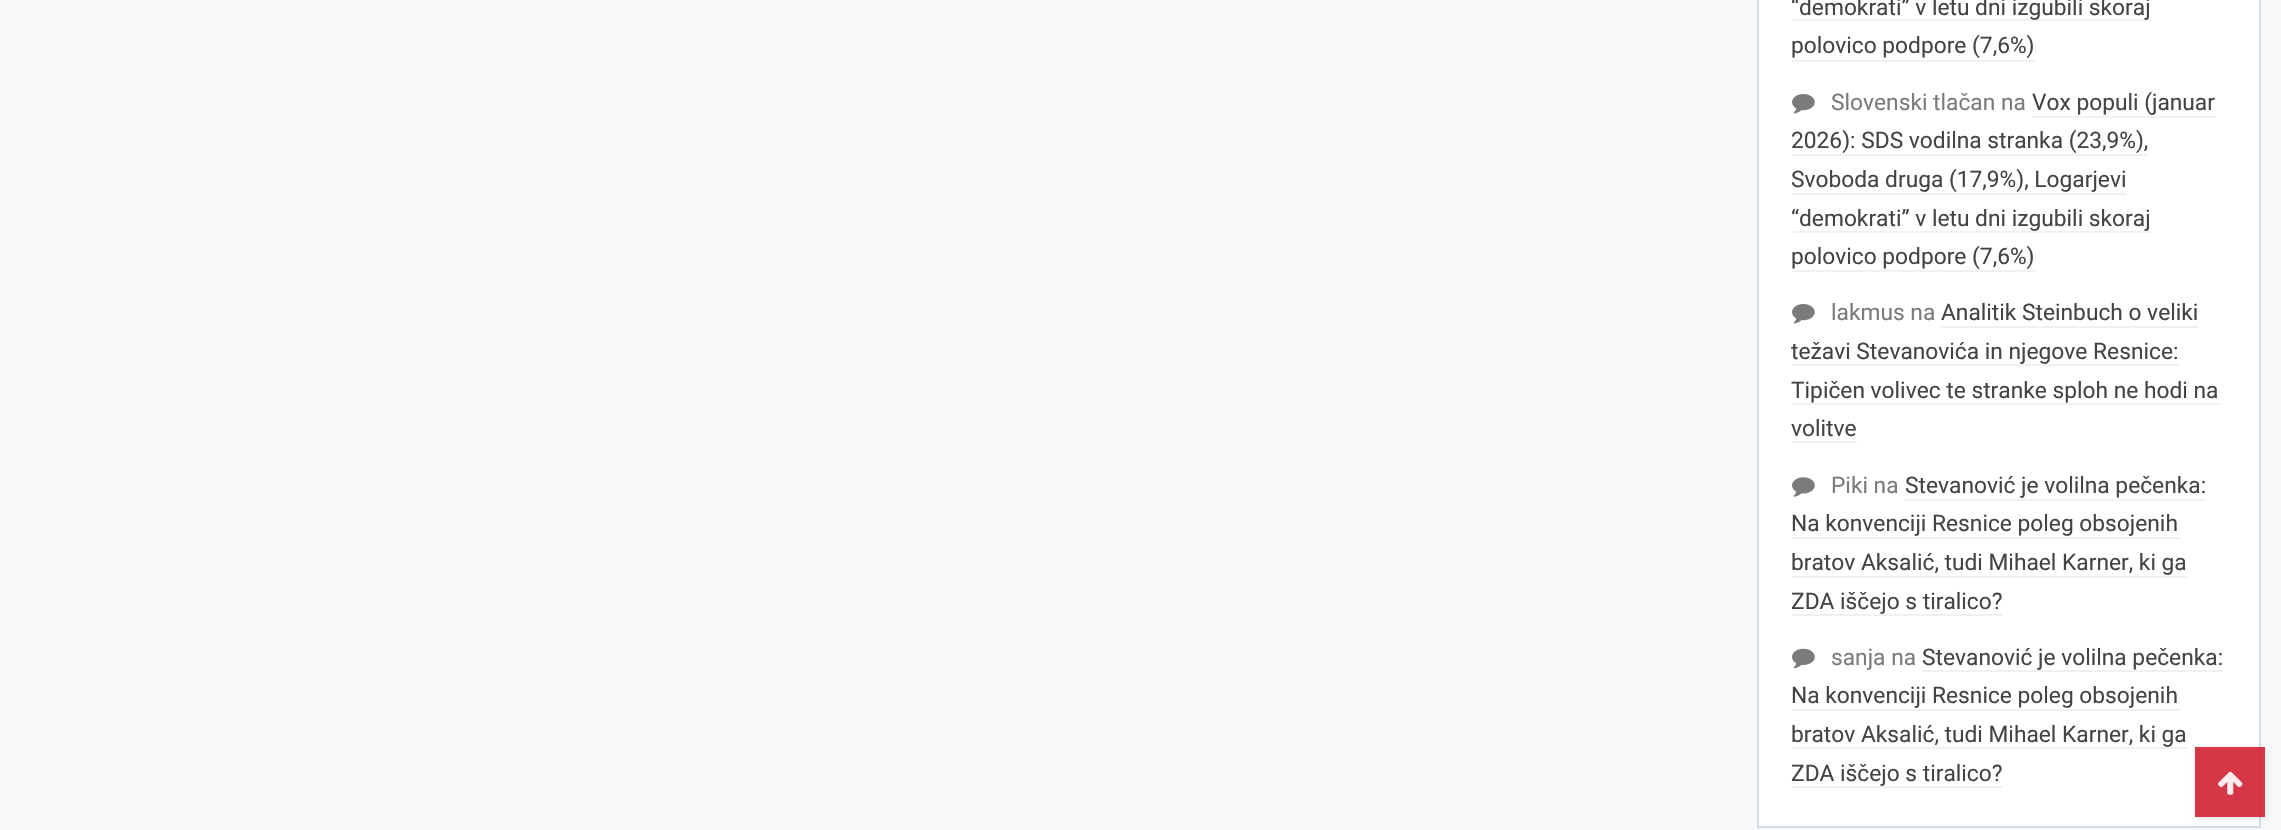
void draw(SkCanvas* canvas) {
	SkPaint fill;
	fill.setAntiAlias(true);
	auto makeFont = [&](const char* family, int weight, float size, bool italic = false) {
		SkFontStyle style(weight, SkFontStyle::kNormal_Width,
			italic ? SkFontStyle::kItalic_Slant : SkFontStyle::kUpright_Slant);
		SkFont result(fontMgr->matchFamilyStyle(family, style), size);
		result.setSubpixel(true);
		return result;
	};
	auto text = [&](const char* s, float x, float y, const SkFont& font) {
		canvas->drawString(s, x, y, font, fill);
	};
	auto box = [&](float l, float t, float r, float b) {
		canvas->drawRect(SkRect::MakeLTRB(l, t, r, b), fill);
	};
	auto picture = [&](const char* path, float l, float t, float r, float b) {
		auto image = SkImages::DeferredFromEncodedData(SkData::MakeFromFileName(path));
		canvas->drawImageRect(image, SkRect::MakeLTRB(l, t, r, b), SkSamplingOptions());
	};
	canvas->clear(0xFFF6F8FA);
	fill.setColor(0xFFFFFFFF);
	canvas->drawRect(SkRect::MakeLTRB(1758, -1, 2260, 827), fill);
	fill.setStyle(SkPaint::kStroke_Style);
	fill.setStrokeWidth(2);
	fill.setColor(0xFFD2DCE3);
	canvas->drawRect(SkRect::MakeLTRB(1758, -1, 2260, 827), fill);
	fill.setStyle(SkPaint::kFill_Style);
	fill.setColor(0xFFF0F0F0);
	box(1792, 19, 2151, 21);
	box(1792, 60, 2035, 62);
	picture("image0.png", 1792, 94, 1815, 114);
	box(2032, 116, 2216, 118);
	box(1792, 154, 2149, 156);
	box(1792, 193, 2126, 195);
	box(1792, 231, 2151, 233);
	box(1792, 270, 2035, 272);
	picture("image0.png", 1792, 304, 1815, 324);
	box(1941, 326, 2198, 328);
	box(1792, 364, 2179, 366);
	box(1792, 403, 2219, 405);
	box(1792, 441, 1857, 443);
	picture("image1.png", 1792, 477, 1815, 497);
	box(1904, 499, 2205, 501);
	box(1792, 537, 2179, 539);
	box(1792, 576, 2188, 578);
	box(1792, 614, 2002, 616);
	picture("image2.png", 1792, 648, 1815, 669);
	box(1922, 670, 2223, 672);
	box(1792, 709, 2179, 711);
	box(1792, 747, 2188, 749);
	box(1792, 786, 2002, 788);
	canvas->save();
	canvas->clipPath(SkPathBuilder(SkPathFillType::kEvenOdd).moveTo(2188, 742).lineTo(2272, 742).lineTo(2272, 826).lineTo(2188, 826).close().moveTo(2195, 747).lineTo(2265, 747).lineTo(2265, 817).lineTo(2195, 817).close().detach(), true);
	fill.setColor(0x14000000);
	fill.setMaskFilter(SkMaskFilter::MakeBlur(kNormal_SkBlurStyle, 2));
	canvas->drawRect(SkRect::MakeLTRB(2195, 749, 2265, 819), fill);
	fill.setMaskFilter(nullptr);
	canvas->restore();
	fill.setColor(0xE6D12133);
	box(2195, 747, 2265, 817);
	picture("image3.png", 2218, 771, 2243, 795);
	auto font1 = makeFont("Roboto", 400, 22.75f);
	fill.setColor(0xFF444444);
	text("“demokrati” v letu dni izgubili skoraj", 1791, 15, font1);
	text("polovico podpore (7,6%)", 1791, 53, font1);
	fill.setColor(0xFF7B7B7B);
	text("Slovenski tlačan na", 1831, 110, font1);
	fill.setColor(0xFF444444);
	text("Vox populi (januar", 2032, 110, font1);
	text("2026): SDS vodilna stranka (23,9%),", 1791, 148, font1);
	text("Svoboda druga (17,9%), Logarjevi", 1791, 187, font1);
	text("“demokrati” v letu dni izgubili skoraj", 1791, 226, font1);
	text("polovico podpore (7,6%)", 1791, 264, font1);
	fill.setColor(0xFF7B7B7B);
	text("lakmus na", 1831, 320, font1);
	fill.setColor(0xFF444444);
	text("Analitik Steinbuch o veliki", 1941, 320, font1);
	text("težavi Stevanovića in njegove Resnice:", 1791, 359, font1);
	text("Tipičen volivec te stranke sploh ne hodi na", 1791, 398, font1);
	text("volitve", 1791, 436, font1);
	fill.setColor(0xFF7B7B7B);
	text("Piki na", 1831, 493, font1);
	fill.setColor(0xFF444444);
	text("Stevanović je volilna pečenka:", 1905, 493, font1);
	text("Na konvenciji Resnice poleg obsojenih", 1791, 531, font1);
	text("bratov Aksalić, tudi Mihael Karner, ki ga", 1791, 570, font1);
	text("ZDA iščejo s tiralico?", 1791, 609, font1);
	fill.setColor(0xFF7B7B7B);
	text("sanja na", 1831, 665, font1);
	fill.setColor(0xFF444444);
	text("Stevanović je volilna pečenka:", 1922, 665, font1);
	text("Na konvenciji Resnice poleg obsojenih", 1791, 703, font1);
	text("bratov Aksalić, tudi Mihael Karner, ki ga", 1791, 742, font1);
	text("ZDA iščejo s tiralico?", 1791, 781, font1);
}
